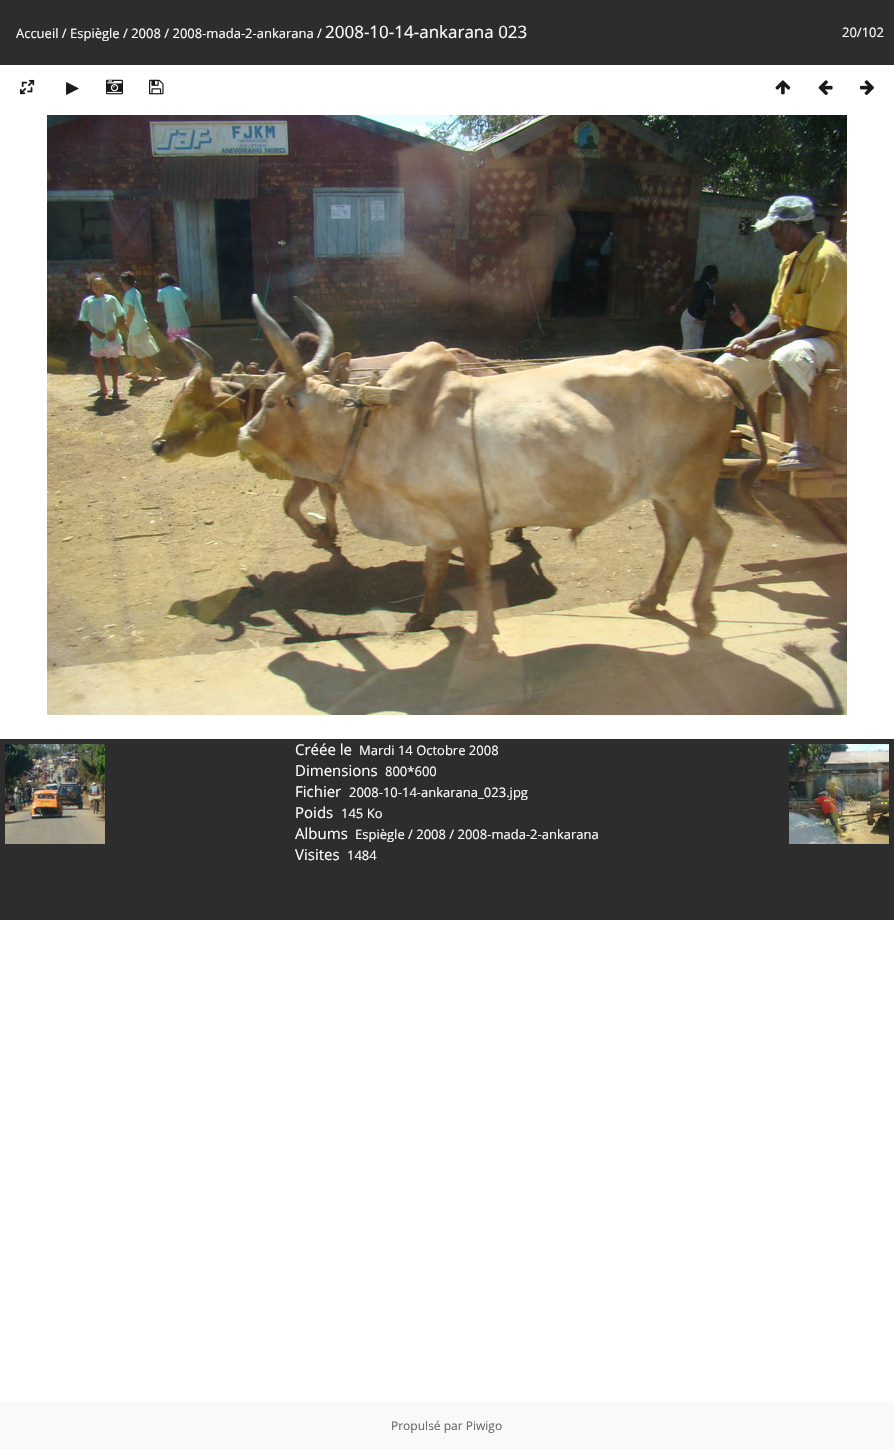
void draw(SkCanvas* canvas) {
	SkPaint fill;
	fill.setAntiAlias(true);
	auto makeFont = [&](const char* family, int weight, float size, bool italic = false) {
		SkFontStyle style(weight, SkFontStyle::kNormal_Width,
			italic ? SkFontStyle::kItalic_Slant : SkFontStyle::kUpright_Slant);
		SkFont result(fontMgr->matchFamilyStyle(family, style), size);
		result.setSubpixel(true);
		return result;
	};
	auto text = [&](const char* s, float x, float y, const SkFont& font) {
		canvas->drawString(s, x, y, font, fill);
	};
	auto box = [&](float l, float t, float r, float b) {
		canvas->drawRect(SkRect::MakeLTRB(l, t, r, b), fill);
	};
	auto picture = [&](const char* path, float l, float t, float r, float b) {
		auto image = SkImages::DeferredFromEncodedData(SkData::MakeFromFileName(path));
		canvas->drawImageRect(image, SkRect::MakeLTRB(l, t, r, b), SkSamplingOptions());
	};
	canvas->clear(0xFFFFFFFF);
	fill.setColor(0xFF2D2D2D);
	box(0, 0, 894, 65);
	picture("image0.png", 20, 79, 35, 95);
	picture("image1.png", 106, 79, 123, 95);
	picture("image2.png", 149, 79, 164, 95);
	picture("image3.png", 775, 80, 791, 95);
	picture("image4.png", 818, 80, 833, 95);
	picture("image5.png", 860, 80, 874, 95);
	picture("image6.png", 47, 115, 847, 715);
	box(0, 739, 894, 920);
	picture("image7.png", 5, 744, 105, 844);
	picture("image8.png", 789, 744, 889, 844);
	fill.setColor(0xFFF9F9F9);
	box(0, 1402, 894, 1449);
	auto font1 = makeFont("Open Sans", 400, 13);
	fill.setColor(0xFFFFFFFF);
	text("Accueil / Espiègle / 2008 / 2008-mada-2-ankarana /", 16, 38, font1);
	auto font2 = makeFont("Open Sans", 400, 17);
	text("2008-10-14-ankarana 023", 325, 38, font2);
	text("20/102", 842, 37, font1);
	auto font3 = makeFont("DejaVu Sans", 400, 17);
	fill.setColor(0xFF1A1A1A);
	text("▶", 66, 93, font3);
	auto font4 = makeFont("Open Sans", 400, 15);
	fill.setColor(0xFFFFFFFF);
	text("Créée le", 295, 755, font4);
	text("Mardi 14 Octobre 2008", 359, 755, font1);
	text("Dimensions", 295, 776, font4);
	text("800*600", 385, 776, font1);
	text("Fichier", 295, 797, font4);
	text("2008-10-14-ankarana_023.jpg", 349, 797, font1);
	text("Poids", 295, 818, font4);
	text("145 Ko", 341, 818, font1);
	text("Albums", 295, 839, font4);
	text("Espiègle / 2008 / 2008-mada-2-ankarana", 355, 839, font1);
	text("Visites", 295, 860, font4);
	text("1484", 347, 860, font1);
	auto font5 = makeFont("Open Sans", 400, 12);
	fill.setColor(0xFF666666);
	text("Propulsé par Piwigo", 391, 1430, font5);
}
